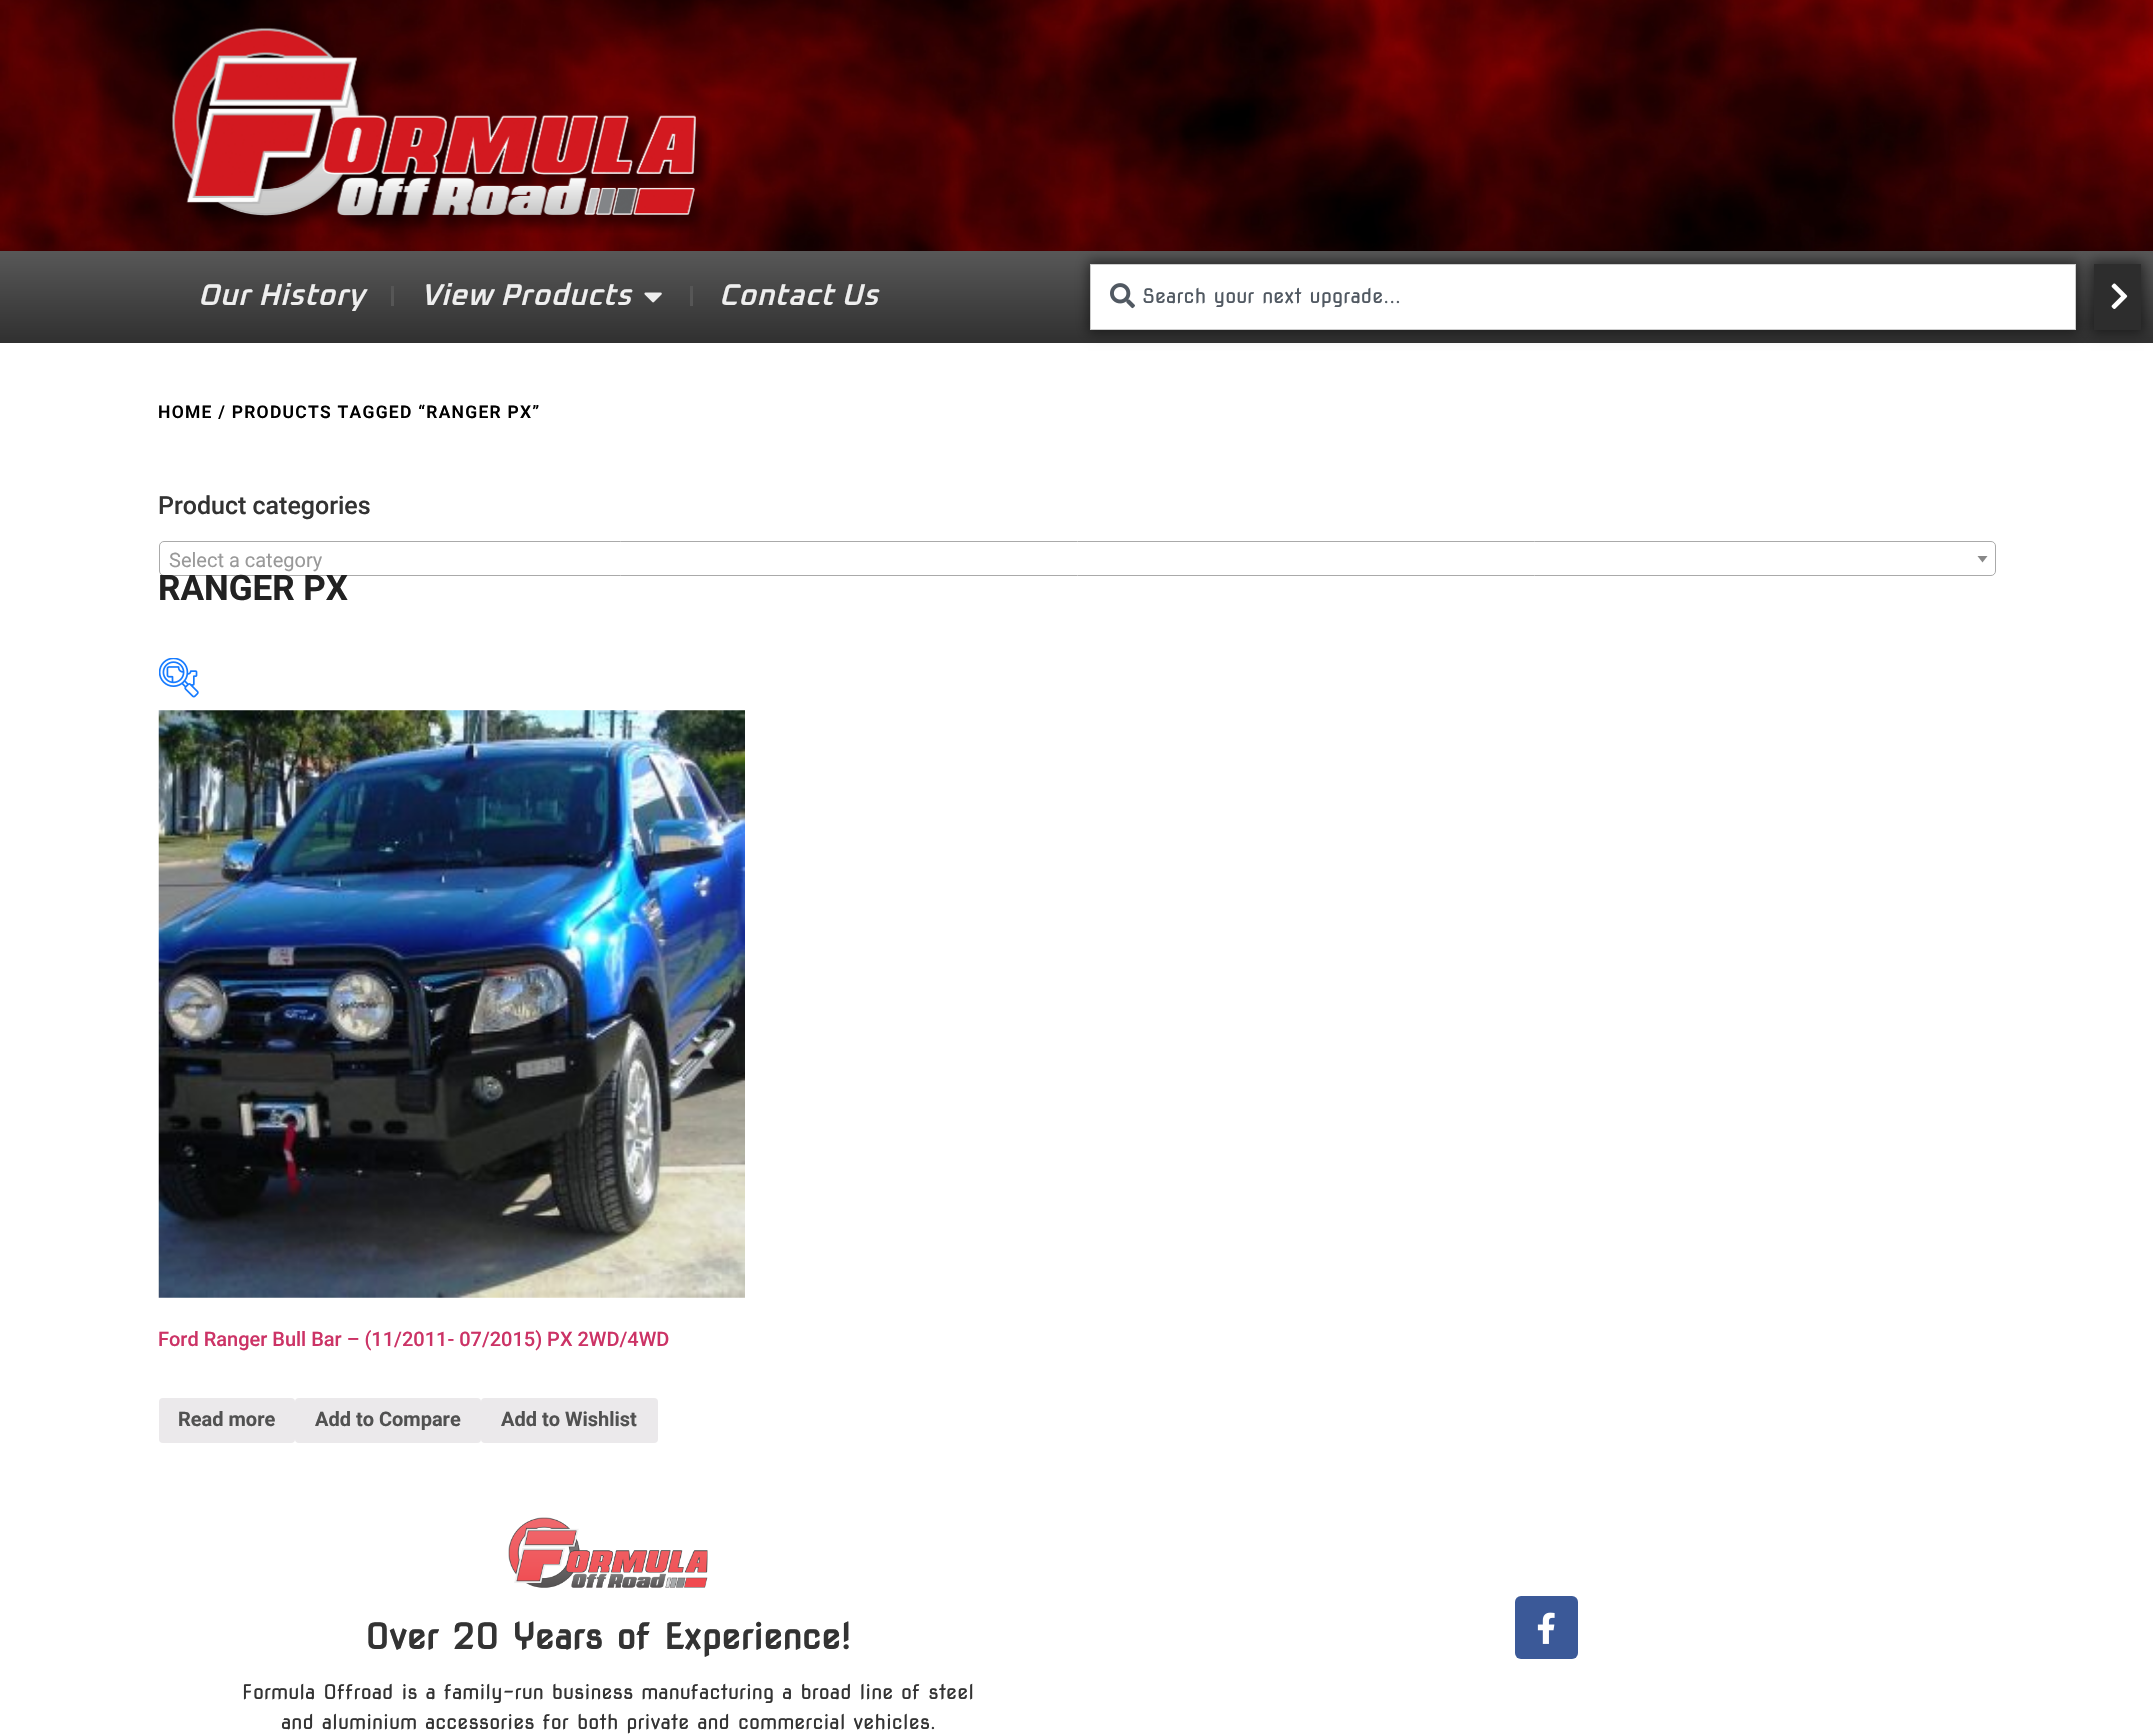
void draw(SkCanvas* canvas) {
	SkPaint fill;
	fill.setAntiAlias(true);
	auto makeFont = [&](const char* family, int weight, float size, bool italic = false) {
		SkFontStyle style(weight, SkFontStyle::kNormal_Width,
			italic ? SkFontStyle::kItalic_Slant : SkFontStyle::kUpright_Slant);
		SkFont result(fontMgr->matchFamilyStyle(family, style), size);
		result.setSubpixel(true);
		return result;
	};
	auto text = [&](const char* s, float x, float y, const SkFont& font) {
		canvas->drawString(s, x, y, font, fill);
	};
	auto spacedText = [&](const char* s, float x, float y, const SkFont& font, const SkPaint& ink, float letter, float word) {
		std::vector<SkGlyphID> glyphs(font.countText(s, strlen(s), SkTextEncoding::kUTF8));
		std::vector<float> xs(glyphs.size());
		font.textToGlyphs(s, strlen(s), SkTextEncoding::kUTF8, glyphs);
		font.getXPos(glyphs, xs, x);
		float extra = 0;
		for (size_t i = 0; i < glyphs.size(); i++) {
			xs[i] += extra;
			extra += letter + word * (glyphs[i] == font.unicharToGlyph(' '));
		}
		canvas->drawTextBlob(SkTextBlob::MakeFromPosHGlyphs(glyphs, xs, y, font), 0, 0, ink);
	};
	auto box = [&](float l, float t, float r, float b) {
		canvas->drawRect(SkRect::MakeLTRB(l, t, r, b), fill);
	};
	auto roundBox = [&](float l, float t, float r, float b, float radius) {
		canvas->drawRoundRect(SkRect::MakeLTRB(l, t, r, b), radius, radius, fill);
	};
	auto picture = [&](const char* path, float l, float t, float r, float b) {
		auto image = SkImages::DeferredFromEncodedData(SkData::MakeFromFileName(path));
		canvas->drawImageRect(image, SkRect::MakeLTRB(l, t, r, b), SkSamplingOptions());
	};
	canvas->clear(0xFFFFFFFF);
	picture("image0.png", 0, 0, 2153, 251);
	picture("image1.png", 172, 27, 712, 233);
	{
		const SkColor colors[] = {0xFF585858, 0xFF303030};
		const float stops[] = {0, 1};
		const SkPoint ends[] = {{1077, 251}, {1077, 343}};
		fill.setShader(SkGradientShader::MakeLinear(ends, colors, stops, 2, SkTileMode::kClamp));
		fill.setAlpha(255);
	}
	box(0, 251, 2153, 343);
	fill.setShader(nullptr);
	fill.setColor(0xFF565656);
	box(391, 286, 394, 306);
	picture("image2.png", 644, 292, 662, 303);
	box(690, 286, 693, 306);
	fill.setColor(0x80000000);
	fill.setMaskFilter(SkMaskFilter::MakeBlur(kNormal_SkBlurStyle, 6));
	canvas->drawRect(SkRect::MakeLTRB(2091, 261, 2144, 333), fill);
	fill.setMaskFilter(nullptr);
	fill.setColor(0xFF2D2D2D);
	box(2094, 264, 2141, 330);
	fill.setColor(0x80000000);
	fill.setMaskFilter(SkMaskFilter::MakeBlur(kNormal_SkBlurStyle, 6));
	canvas->drawRect(SkRect::MakeLTRB(1088, 261, 2079, 333), fill);
	fill.setMaskFilter(nullptr);
	fill.setColor(0xFFFFFFFF);
	canvas->drawRect(SkRect::MakeLTRB(1090.5f, 264.5f, 2075.5f, 329.5f), fill);
	fill.setStyle(SkPaint::kStroke_Style);
	fill.setStrokeWidth(1);
	fill.setColor(0xFFCDCDCD);
	canvas->drawRect(SkRect::MakeLTRB(1090.5f, 264.5f, 2075.5f, 329.5f), fill);
	picture("image3.png", 1110, 283, 1135, 309);
	picture("image4.png", 2111, 283, 2128, 309);
	fill.setColor(0xFFAAAAAA);
	canvas->drawRoundRect(SkRect::MakeLTRB(159.5f, 541.5f, 1995.5f, 575.5f), 4.5f, 4.5f, fill);
	fill.setStyle(SkPaint::kFill_Style);
	fill.setColor(0xFF888888);
	canvas->drawPath(SkPathBuilder().moveTo(1977.5f, 556).lineTo(1987.5f, 556).lineTo(1982.5f, 562.5f).close().detach(), fill);
	picture("image5.png", 159, 658, 199, 698);
	picture("image6.png", 158, 710, 745, 1298);
	fill.setColor(0xFFEBE9EB);
	roundBox(159, 1398, 295, 1443, 4);
	roundBox(295, 1398, 481, 1443, 4);
	roundBox(481, 1398, 658, 1443, 4);
	picture("image7.png", 508, 1517, 708, 1588);
	fill.setColor(0xFF3B5998);
	roundBox(1515, 1596, 1578, 1659, 6);
	picture("image8.png", 1537, 1612, 1555, 1644);
	auto font1 = makeFont("Oxanium", 600, 30, true);
	fill.setColor(0xFFEEEEEE);
	spacedText("Our History", 198, 305, font1, fill, 0.6f, 0);
	spacedText("View Products", 421, 305, font1, fill, 0.6f, 0);
	spacedText("Contact Us", 719, 305, font1, fill, 0.6f, 0);
	auto font2 = makeFont("Nova Square", 400, 20);
	fill.setColor(0xFF515962);
	text("Search your next upgrade...", 1142, 303, font2);
	auto font3 = makeFont("Roboto", 600, 17.5f);
	fill.setColor(0xFF000000);
	spacedText("HOME / PRODUCTS TAGGED “RANGER PX”", 158, 418, font3, fill, 1.25f, 0);
	auto font4 = makeFont("Roboto", 500, 25);
	fill.setColor(0xFF333333);
	text("Product categories", 158, 514, font4);
	auto font5 = makeFont("Roboto", 400, 20);
	fill.setColor(0xFF999999);
	text("Select a category", 169, 567, font5);
	auto font6 = makeFont("Roboto", 700, 35);
	fill.setColor(0xFF222222);
	text("RANGER PX", 158, 600, font6);
	auto font7 = makeFont("Roboto", 500, 20);
	fill.setColor(0xFFCC3366);
	text("Ford Ranger Bull Bar – (11/2011- 07/2015) PX 2WD/4WD", 158, 1346, font7);
	auto font8 = makeFont("Roboto", 700, 20);
	fill.setColor(0xFF515151);
	text("Read more", 178, 1426, font8);
	text("Add to Compare", 315, 1426, font8);
	text("Add to Wishlist", 501, 1426, font8);
	auto font9 = makeFont("Nova Square", 700, 35);
	fill.setColor(0xFF333333);
	text("Over 20 Years of Experience!", 365, 1649, font9);
	text("Formula Offroad is a family-run business manufacturing a broad line of steel", 242, 1699, font2);
	text("and aluminium accessories for both private and commercial vehicles.", 281, 1729, font2);
}
